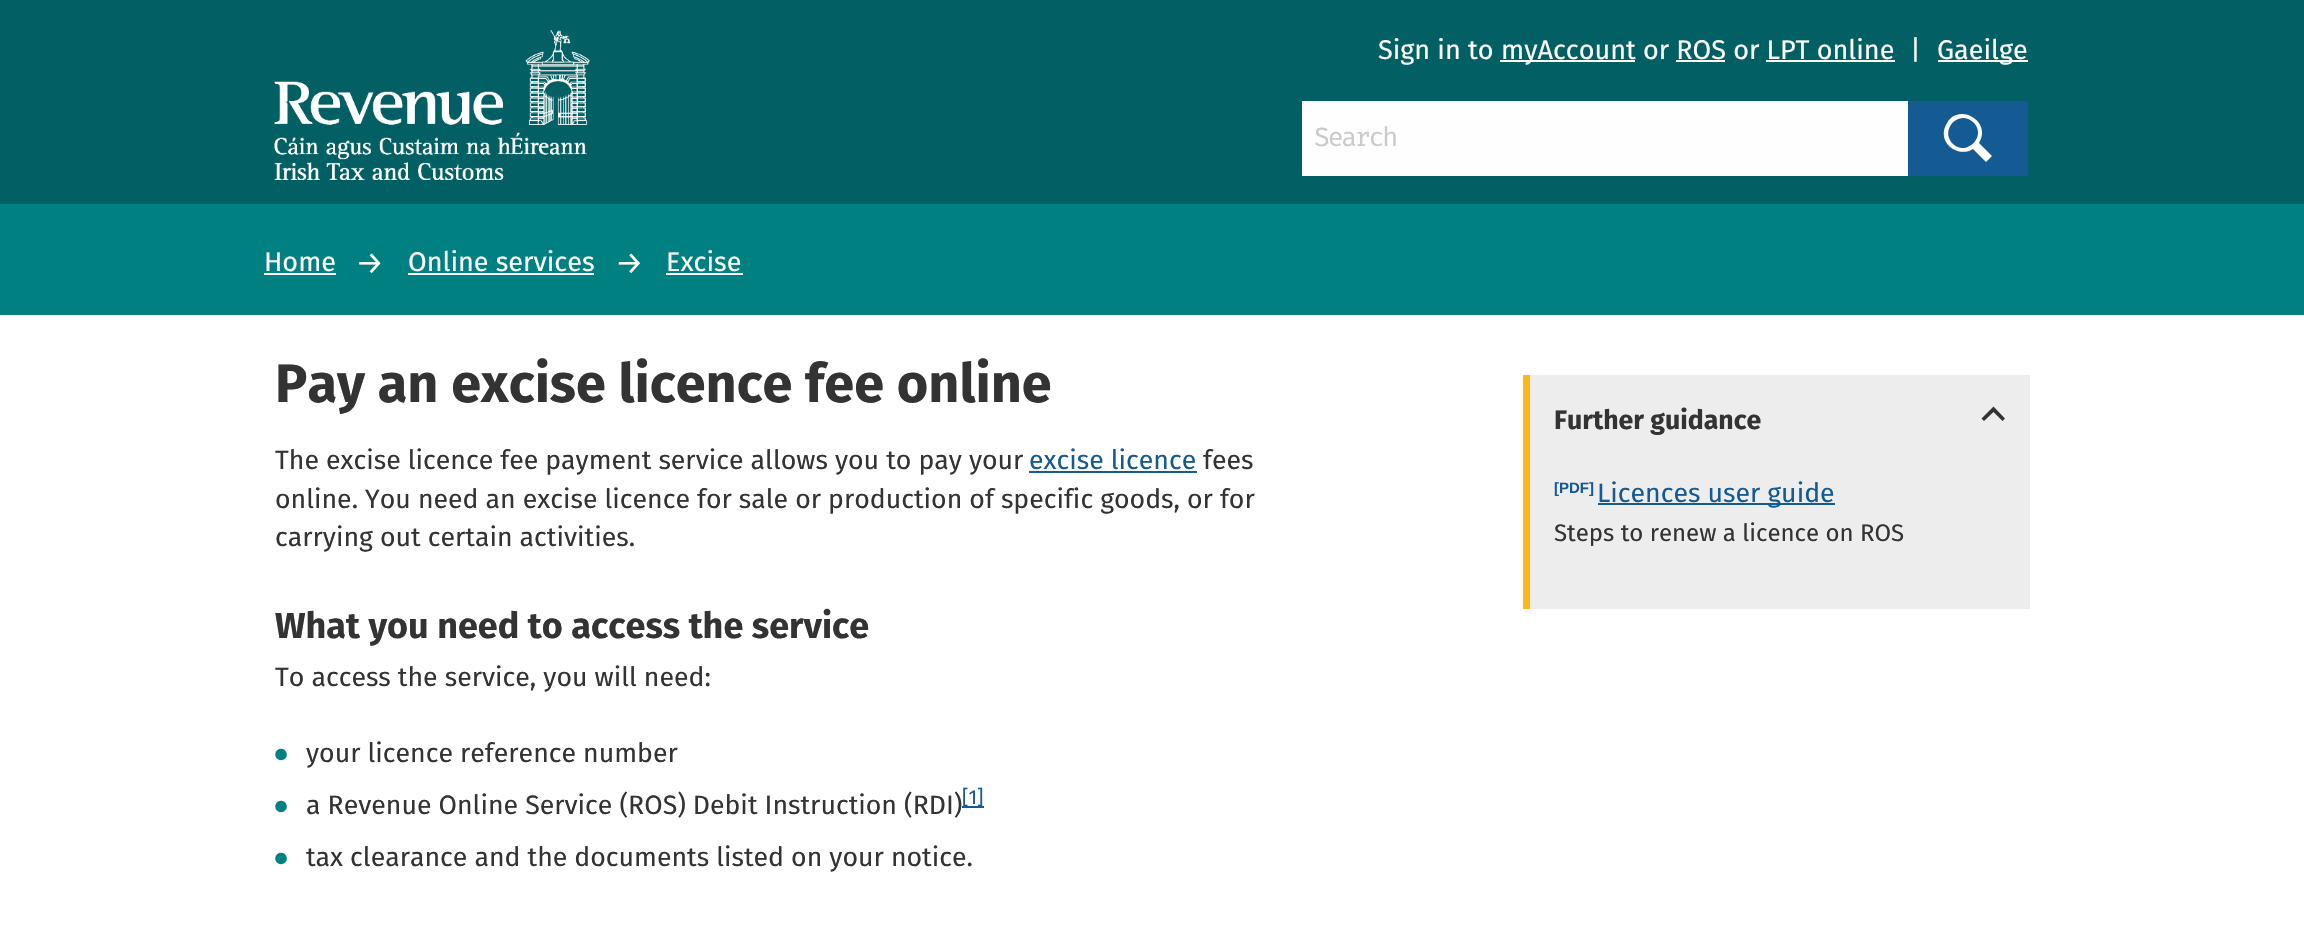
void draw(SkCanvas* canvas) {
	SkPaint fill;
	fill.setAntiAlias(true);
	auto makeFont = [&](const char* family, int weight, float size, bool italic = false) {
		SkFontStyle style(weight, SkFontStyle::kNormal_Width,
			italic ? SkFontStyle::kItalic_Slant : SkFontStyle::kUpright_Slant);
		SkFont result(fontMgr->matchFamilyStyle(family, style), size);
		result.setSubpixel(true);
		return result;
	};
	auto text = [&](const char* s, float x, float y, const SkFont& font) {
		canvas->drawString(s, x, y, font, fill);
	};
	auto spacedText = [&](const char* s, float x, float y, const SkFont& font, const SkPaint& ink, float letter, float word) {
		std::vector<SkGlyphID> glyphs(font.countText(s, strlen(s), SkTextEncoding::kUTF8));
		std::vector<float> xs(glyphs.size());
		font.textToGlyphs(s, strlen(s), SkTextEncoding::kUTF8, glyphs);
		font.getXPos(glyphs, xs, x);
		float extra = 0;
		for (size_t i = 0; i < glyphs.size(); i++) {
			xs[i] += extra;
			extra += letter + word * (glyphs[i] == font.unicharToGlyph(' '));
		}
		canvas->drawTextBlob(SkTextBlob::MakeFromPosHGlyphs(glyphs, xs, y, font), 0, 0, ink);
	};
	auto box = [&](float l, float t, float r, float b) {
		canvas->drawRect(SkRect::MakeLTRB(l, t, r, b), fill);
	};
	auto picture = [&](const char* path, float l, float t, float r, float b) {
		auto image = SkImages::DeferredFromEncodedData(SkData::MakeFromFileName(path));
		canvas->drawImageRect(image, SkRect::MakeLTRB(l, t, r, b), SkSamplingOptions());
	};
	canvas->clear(0xFF025F63);
	picture("image0.png", 274, 30, 590, 180);
	fill.setColor(0xFFFFFFFF);
	box(1500, 60, 1635, 62);
	box(1938, 60, 2028, 62);
	box(1676, 60, 1725, 62);
	box(1766, 60, 1895, 62);
	fill.setColor(0xFFFEFEFE);
	box(1302, 101, 1908, 176);
	fill.setColor(0xFF145B94);
	box(1908, 101, 2028, 176);
	fill.setColor(0xFFFFFFFF);
	canvas->drawPath(SkPathBuilder().moveTo(1992, 156).lineTo(1979, 143).cubicTo(1993, 120, 1956, 101, 1946, 125).cubicTo(1943, 130, 1943, 137, 1946, 142).cubicTo(1951, 151, 1964, 155, 1973, 149).lineTo(1986, 162).close().moveTo(1953, 144).cubicTo(1939, 130, 1959, 109, 1973, 122).cubicTo(1988, 136, 1966, 157, 1953, 144).close().detach(), fill);
	fill.setColor(0xFF008080);
	box(0, 204, 2304, 315);
	fill.setColor(0xFFFFFFFF);
	box(264, 273, 336, 275);
	picture("image1.png", 359, 253, 381, 273);
	box(408, 273, 594, 275);
	picture("image2.png", 618, 253, 640, 273);
	box(666, 273, 743, 275);
	box(0, 315, 2304, 933);
	fill.setColor(0xFF145B94);
	box(1029, 471, 1197, 473);
	box(962, 806, 984, 808);
	fill.setColor(0xFFEDEDEE);
	box(1530, 375, 2030, 609);
	fill.setColor(0xFFFBB816);
	box(1523, 375, 1530, 609);
	fill.setColor(0xFF333333);
	canvas->drawPath(SkPathBuilder().moveTo(1984, 421).lineTo(1993.5f, 412).lineTo(2002.5f, 421).lineTo(2005, 418.5f).lineTo(1993.5f, 406.5f).lineTo(1981.5f, 418.5f).close().detach(), fill);
	fill.setColor(0xFF145B94);
	box(1598, 503, 1835, 505);
	auto font1 = makeFont("Fira Sans", 400, 27);
	fill.setColor(0xFFFFFFFF);
	text("Sign in to", 1378, 59, font1);
	text("myAccount or ROS or LPT online", 1501, 59, font1);
	text("|", 1910, 59, font1);
	text("Gaeilge", 1937, 59, font1);
	auto font2 = makeFont("Fira Mono", 400, 26.5f);
	fill.setColor(0xFFCACACA);
	spacedText("Search", 1314, 146, font2, fill, -2.25f, 0);
	fill.setColor(0xFFFFFFFF);
	text("Home", 264, 271, font1);
	text("Online services", 408, 271, font1);
	text("Excise", 666, 271, font1);
	auto font3 = makeFont("Fira Sans", 700, 54);
	fill.setColor(0xFF333333);
	text("Pay an excise licence fee online", 275, 402, font3);
	auto font4 = makeFont("Fira Sans", 400, 26.65f);
	text("The excise licence fee payment service allows you to pay your", 275, 469, font4);
	fill.setColor(0xFF145B94);
	text("excise licence", 1029, 469, font4);
	fill.setColor(0xFF333333);
	text("fees", 1203, 469, font4);
	text("online. You need an excise licence for sale or production of specific goods, or for", 275, 508, font4);
	text("carrying out certain activities.", 275, 546, font4);
	auto font5 = makeFont("Fira Sans", 700, 36);
	text("What you need to access the service", 275, 638, font5);
	text("To access the service, you will need:", 275, 686, font4);
	auto font6 = makeFont("Liberation Sans", 400, 26.65f);
	fill.setColor(0xFF008080);
	text("●", 273, 762, font6);
	fill.setColor(0xFF333333);
	text("your licence reference number", 306, 762, font4);
	fill.setColor(0xFF008080);
	text("●", 273, 814, font6);
	fill.setColor(0xFF333333);
	text("a Revenue Online Service (ROS) Debit Instruction (RDI)", 306, 814, font4);
	auto font7 = makeFont("Fira Sans", 400, 20);
	fill.setColor(0xFF145B94);
	text("[1]", 962, 804, font7);
	fill.setColor(0xFF008080);
	text("●", 273, 866, font6);
	fill.setColor(0xFF333333);
	text("tax clearance and the documents listed on your notice.", 306, 866, font4);
	auto font8 = makeFont("Fira Sans", 700, 26.65f);
	text("Further guidance", 1554, 429, font8);
	auto font9 = makeFont("Liberation Sans", 700, 15);
	fill.setColor(0xFF145B94);
	text("[PDF]", 1554, 493, font9);
	text("Licences user guide", 1597, 502, font4);
	auto font10 = makeFont("Fira Sans", 400, 24);
	fill.setColor(0xFF333333);
	text("Steps to renew a licence on ROS", 1554, 541, font10);
}
